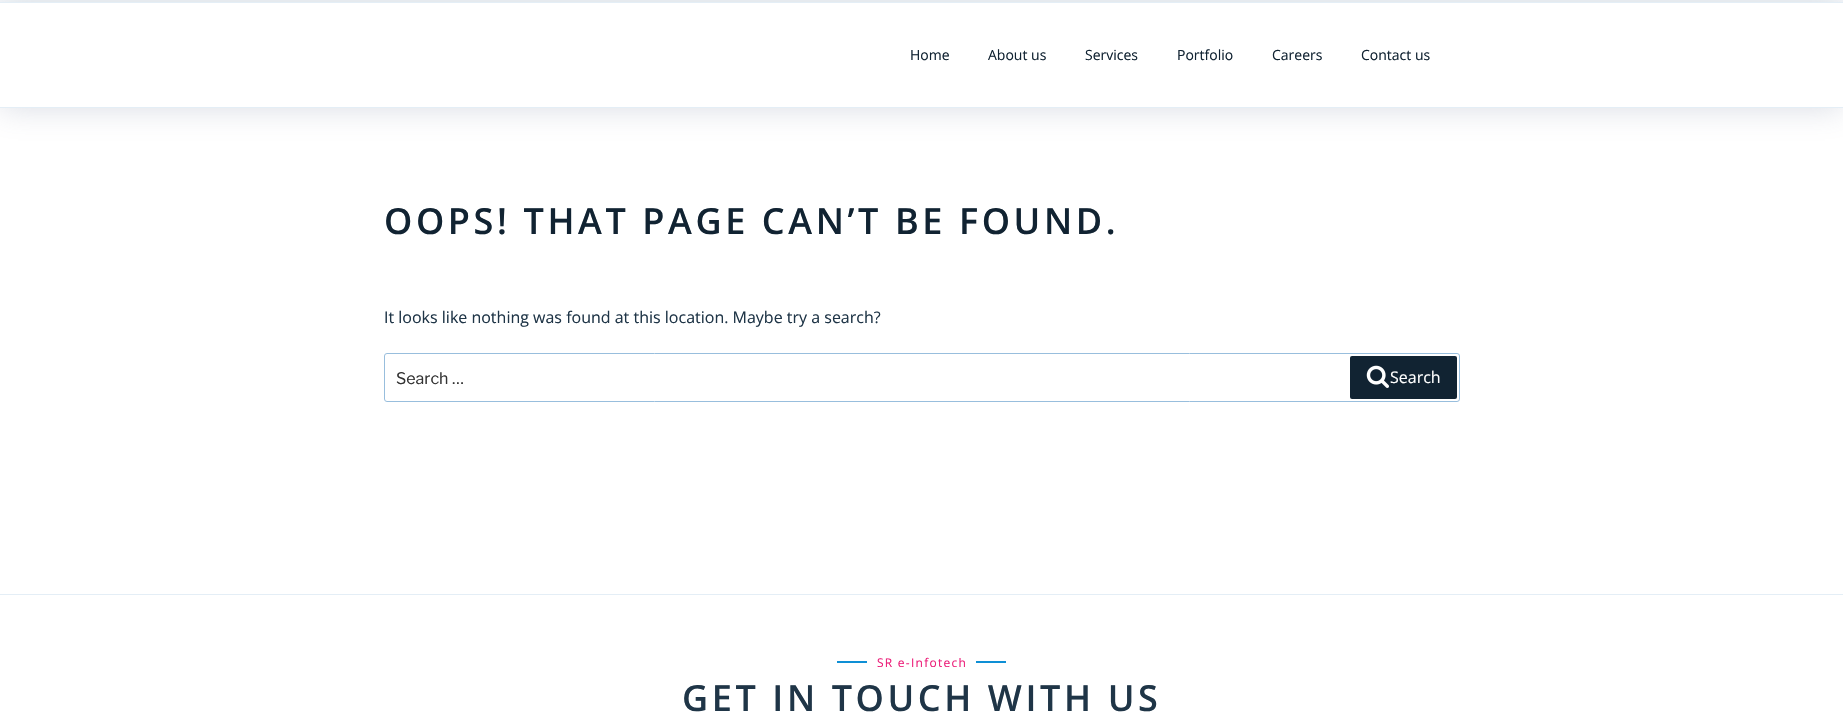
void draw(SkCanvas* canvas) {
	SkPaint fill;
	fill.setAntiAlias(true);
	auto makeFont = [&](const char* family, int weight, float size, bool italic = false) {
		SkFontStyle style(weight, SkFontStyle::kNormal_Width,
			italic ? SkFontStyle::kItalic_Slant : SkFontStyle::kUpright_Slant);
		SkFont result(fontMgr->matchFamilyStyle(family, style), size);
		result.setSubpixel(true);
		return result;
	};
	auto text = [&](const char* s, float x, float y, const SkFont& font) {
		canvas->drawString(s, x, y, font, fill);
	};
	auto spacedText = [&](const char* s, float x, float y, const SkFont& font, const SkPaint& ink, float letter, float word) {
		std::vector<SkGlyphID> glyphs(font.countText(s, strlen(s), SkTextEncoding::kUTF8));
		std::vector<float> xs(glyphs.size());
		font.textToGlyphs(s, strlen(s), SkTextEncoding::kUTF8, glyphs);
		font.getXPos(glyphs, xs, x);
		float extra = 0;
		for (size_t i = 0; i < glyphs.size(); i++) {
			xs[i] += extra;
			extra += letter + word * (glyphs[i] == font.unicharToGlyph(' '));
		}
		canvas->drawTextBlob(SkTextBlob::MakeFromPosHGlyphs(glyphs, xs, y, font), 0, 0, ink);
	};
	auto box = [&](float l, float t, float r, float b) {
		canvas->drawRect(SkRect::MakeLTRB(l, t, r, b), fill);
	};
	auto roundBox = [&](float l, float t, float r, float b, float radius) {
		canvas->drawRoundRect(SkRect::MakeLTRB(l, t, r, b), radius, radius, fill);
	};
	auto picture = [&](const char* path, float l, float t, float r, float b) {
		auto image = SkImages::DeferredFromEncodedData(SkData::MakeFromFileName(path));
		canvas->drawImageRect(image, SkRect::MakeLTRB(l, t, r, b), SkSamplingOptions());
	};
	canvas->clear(0xFFFFFFFF);
	fill.setColor(0xFFF7FAFC);
	box(0, 0, 1843, 2);
	fill.setColor(0x4D7F89A1);
	fill.setMaskFilter(SkMaskFilter::MakeBlur(kNormal_SkBlurStyle, 15));
	canvas->drawRect(SkRect::MakeLTRB(0, 2, 1843, 108), fill);
	fill.setMaskFilter(nullptr);
	fill.setColor(0xFFFFFFFF);
	box(0, 3, 1843, 107);
	fill.setColor(0xFFE4EEF6);
	box(0, 2, 1843, 3);
	box(0, 107, 1843, 108);
	fill.setStyle(SkPaint::kStroke_Style);
	fill.setStrokeWidth(1);
	fill.setColor(0xFF98BEDD);
	canvas->drawRoundRect(SkRect::MakeLTRB(384.5f, 353.5f, 1459.5f, 401.5f), 2.5f, 2.5f, fill);
	fill.setStyle(SkPaint::kFill_Style);
	fill.setColor(0xFF112332);
	roundBox(1350, 356, 1457, 399, 2);
	picture("image0.png", 1366, 365, 1389, 388);
	fill.setColor(0xFFE4EEF6);
	box(0, 594, 1843, 595);
	fill.setColor(0xFF0E8FD5);
	box(837, 661, 867, 663);
	box(976, 661, 1006, 663);
	auto font1 = makeFont("Open Sans", 400, 14);
	fill.setColor(0xFF112332);
	text("Home", 910, 60, font1);
	text("About us", 988, 60, font1);
	text("Services", 1085, 60, font1);
	text("Portfolio", 1177, 60, font1);
	text("Careers", 1272, 60, font1);
	text("Contact us", 1361, 60, font1);
	auto font2 = makeFont("Open Sans", 600, 36);
	spacedText("OOPS! THAT PAGE CAN’T BE FOUND.", 384, 234, font2, fill, 3.6f, 0);
	auto font3 = makeFont("Open Sans", 400, 16);
	fill.setColor(0xFF1F3547);
	text("It looks like nothing was found at this location. Maybe try a search?", 384, 323, font3);
	auto font4 = makeFont("Libre Franklin", 400, 16);
	fill.setColor(0xFF333333);
	text("Search …", 396, 384, font4);
	fill.setColor(0xFFFFFFFF);
	text("Search", 1390, 383, font3);
	auto font5 = makeFont("Open Sans", 400, 12);
	fill.setColor(0xFFEC1E79);
	spacedText("SR e-Infotech", 877, 667, font5, fill, 1.25f, 0);
	fill.setColor(0xFF1F3547);
	spacedText("GET IN TOUCH WITH US", 682, 711, font2, fill, 3.6f, 0);
}
